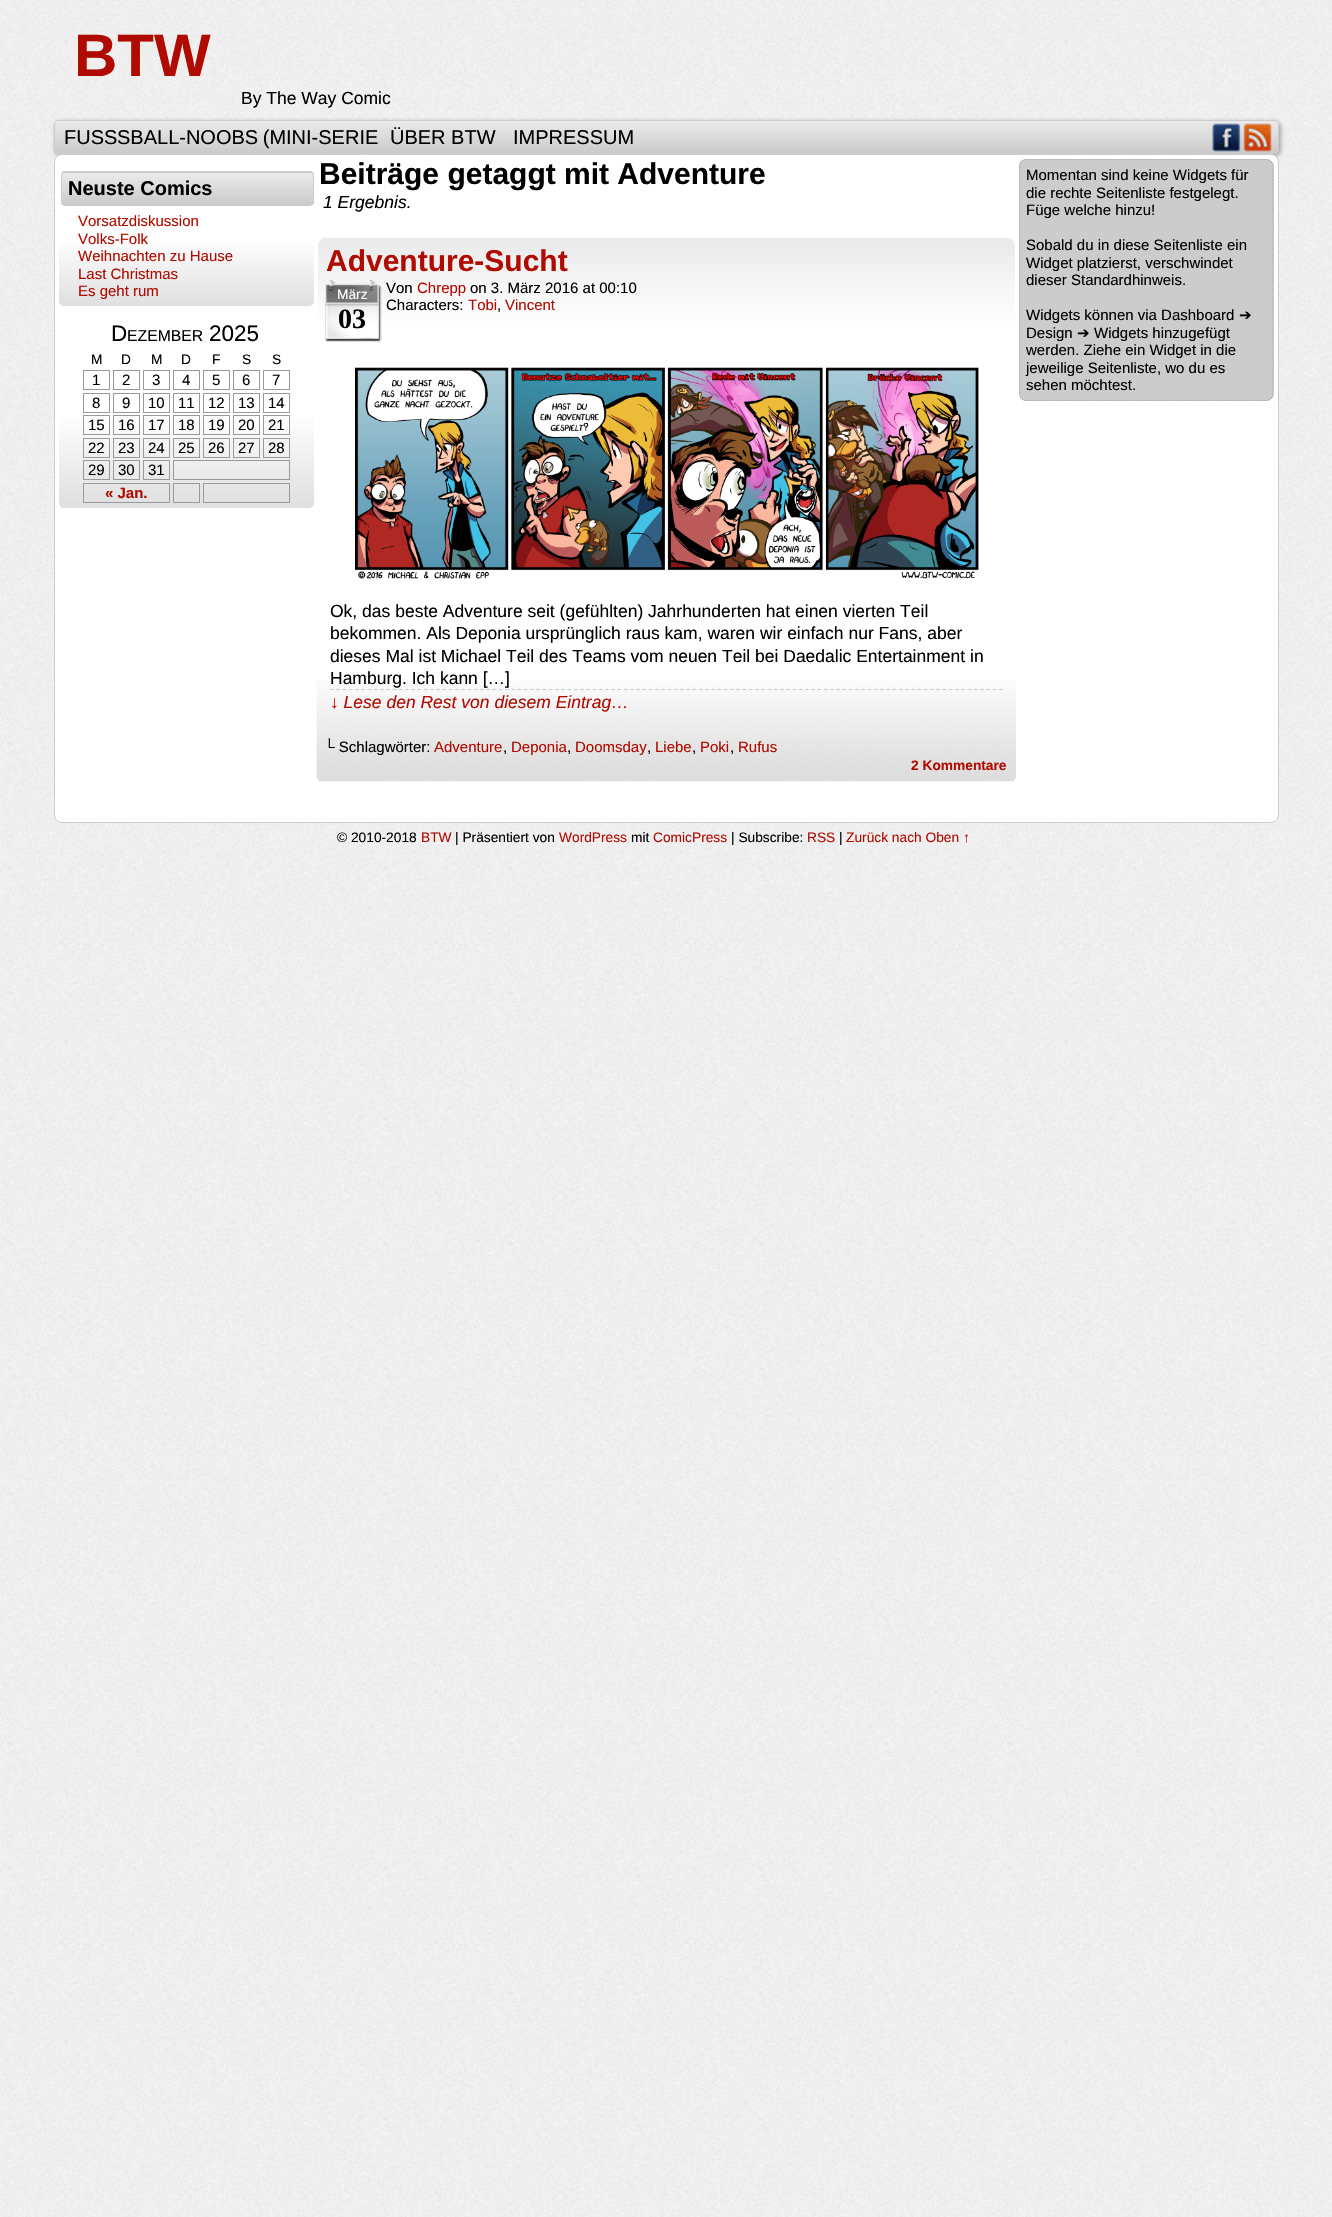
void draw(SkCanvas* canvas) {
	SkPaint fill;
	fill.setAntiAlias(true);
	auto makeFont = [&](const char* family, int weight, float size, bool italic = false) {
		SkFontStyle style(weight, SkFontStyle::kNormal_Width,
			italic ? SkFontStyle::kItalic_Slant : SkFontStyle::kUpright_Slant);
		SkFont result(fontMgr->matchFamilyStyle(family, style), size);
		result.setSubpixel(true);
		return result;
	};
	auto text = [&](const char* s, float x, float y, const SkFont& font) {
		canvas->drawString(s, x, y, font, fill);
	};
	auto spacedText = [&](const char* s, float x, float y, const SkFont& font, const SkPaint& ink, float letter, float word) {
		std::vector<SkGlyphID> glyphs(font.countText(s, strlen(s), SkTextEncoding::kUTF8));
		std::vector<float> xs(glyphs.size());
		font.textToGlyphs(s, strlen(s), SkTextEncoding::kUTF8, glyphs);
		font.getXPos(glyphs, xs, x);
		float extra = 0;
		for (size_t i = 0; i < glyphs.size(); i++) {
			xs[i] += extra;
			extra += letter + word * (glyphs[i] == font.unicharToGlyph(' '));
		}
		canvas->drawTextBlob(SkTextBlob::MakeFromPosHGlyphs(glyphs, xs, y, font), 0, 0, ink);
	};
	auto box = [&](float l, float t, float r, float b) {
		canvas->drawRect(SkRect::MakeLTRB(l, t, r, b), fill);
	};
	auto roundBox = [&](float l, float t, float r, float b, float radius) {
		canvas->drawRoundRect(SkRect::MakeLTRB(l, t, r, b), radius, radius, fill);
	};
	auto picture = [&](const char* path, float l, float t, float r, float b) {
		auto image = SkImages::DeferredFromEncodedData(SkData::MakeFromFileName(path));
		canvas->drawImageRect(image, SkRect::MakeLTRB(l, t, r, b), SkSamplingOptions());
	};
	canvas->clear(0xFFFFFFFF);
	picture("image0.png", 0, 0, 1332, 2217);
	fill.setColor(0x33000000);
	fill.setMaskFilter(SkMaskFilter::MakeBlur(kNormal_SkBlurStyle, 2.5f));
	canvas->drawRoundRect(SkRect::MakeLTRB(56, 123, 1281, 156), 5, 5, fill);
	fill.setMaskFilter(nullptr);
	fill.setColor(0x33141414);
	fill.setMaskFilter(SkMaskFilter::MakeBlur(kNormal_SkBlurStyle, 2));
	canvas->drawRoundRect(SkRect::MakeLTRB(55, 121, 1280, 155), 5, 5, fill);
	fill.setMaskFilter(nullptr);
	canvas->save();
	canvas->clipPath(SkPathBuilder().moveTo(59, 120).lineTo(1274, 120).cubicTo(1277, 120, 1279, 122, 1279, 125).lineTo(1279, 149).cubicTo(1279, 152, 1277, 154, 1274, 154).lineTo(59, 154).cubicTo(56, 154, 54, 152, 54, 149).lineTo(54, 125).cubicTo(54, 122, 56, 120, 59, 120).close().detach(), true);
	{
		const SkColor colors[] = {0xFFEAEAEA, 0xFFCACACA};
		const float stops[] = {0, 1};
		const SkPoint ends[] = {{666, 121}, {666, 153}};
		fill.setShader(SkGradientShader::MakeLinear(ends, colors, stops, 2, SkTileMode::kClamp));
		fill.setAlpha(255);
	}
	box(54, 121, 1279, 153);
	canvas->restore();
	fill.setStyle(SkPaint::kStroke_Style);
	fill.setStrokeWidth(1);
	fill.setShader(nullptr);
	fill.setColor(0xFFCCCCCC);
	canvas->drawRoundRect(SkRect::MakeLTRB(54.5f, 120.5f, 1278.5f, 153.5f), 4.5f, 4.5f, fill);
	picture("image1.png", 1212, 123, 1241, 152);
	picture("image2.png", 1243, 123, 1272, 152);
	fill.setStyle(SkPaint::kFill_Style);
	fill.setColor(0xFFFFFFFF);
	canvas->drawRoundRect(SkRect::MakeLTRB(54.5f, 154.5f, 1278.5f, 822.5f), 7.5f, 7.5f, fill);
	fill.setStyle(SkPaint::kStroke_Style);
	fill.setColor(0xFFCCCCCC);
	canvas->drawRoundRect(SkRect::MakeLTRB(54.5f, 154.5f, 1278.5f, 822.5f), 7.5f, 7.5f, fill);
	fill.setStyle(SkPaint::kFill_Style);
	{
		const SkColor colors[] = {0xFFFFFFFF, 0xFFFFFFFF, 0xFFDFDFDF};
		const float stops[] = {0, 0.49f, 1};
		const SkPoint ends[] = {{186, 171}, {186, 306}};
		fill.setShader(SkGradientShader::MakeLinear(ends, colors, stops, 3, SkTileMode::kClamp));
		fill.setAlpha(255);
	}
	roundBox(59, 171, 314, 306, 5);
	canvas->save();
	canvas->clipPath(SkPathBuilder().moveTo(65, 171).lineTo(310, 171).cubicTo(312, 171, 314, 173, 314, 175).lineTo(314, 202).cubicTo(314, 204, 312, 206, 310, 206).lineTo(65, 206).cubicTo(63, 206, 61, 204, 61, 202).lineTo(61, 175).cubicTo(61, 173, 63, 171, 65, 171).close().detach(), true);
	{
		const SkColor colors[] = {0xFFEAEAEA, 0xFFCACACA};
		const float stops[] = {0, 1};
		const SkPoint ends[] = {{188, 140}, {188, 173}};
		fill.setShader(SkGradientShader::MakeLinear(ends, colors, stops, 2, SkTileMode::kClamp));
		fill.setAlpha(255);
	}
	box(61, 171, 314, 173);
	{
		const SkColor colors[] = {0xFFEAEAEA, 0xFFCACACA};
		const float stops[] = {0, 1};
		const SkPoint ends[] = {{188, 173}, {188, 205}};
		fill.setShader(SkGradientShader::MakeLinear(ends, colors, stops, 2, SkTileMode::kClamp));
		fill.setAlpha(255);
	}
	box(61, 173, 314, 205);
	canvas->restore();
	fill.setStyle(SkPaint::kStroke_Style);
	fill.setShader(nullptr);
	fill.setColor(0xFFCCCCCC);
	canvas->drawRoundRect(SkRect::MakeLTRB(61.5f, 171.5f, 313.5f, 205.5f), 3.5f, 3.5f, fill);
	fill.setStyle(SkPaint::kFill_Style);
	{
		const SkColor colors[] = {0xFFFFFFFF, 0xFFFFFFFF, 0xFFDFDFDF};
		const float stops[] = {0, 0.49f, 1};
		const SkPoint ends[] = {{186, 319}, {186, 508}};
		fill.setShader(SkGradientShader::MakeLinear(ends, colors, stops, 3, SkTileMode::kClamp));
		fill.setAlpha(255);
	}
	roundBox(59, 319, 314, 508, 5);
	fill.setStyle(SkPaint::kStroke_Style);
	fill.setShader(nullptr);
	fill.setColor(0xFF999999);
	canvas->drawRect(SkRect::MakeLTRB(83.5f, 370.5f, 109.5f, 389.5f), fill);
	canvas->drawRect(SkRect::MakeLTRB(113.5f, 370.5f, 139.5f, 389.5f), fill);
	canvas->drawRect(SkRect::MakeLTRB(143.5f, 370.5f, 169.5f, 389.5f), fill);
	canvas->drawRect(SkRect::MakeLTRB(173.5f, 370.5f, 199.5f, 389.5f), fill);
	canvas->drawRect(SkRect::MakeLTRB(203.5f, 370.5f, 229.5f, 389.5f), fill);
	canvas->drawRect(SkRect::MakeLTRB(233.5f, 370.5f, 259.5f, 389.5f), fill);
	canvas->drawRect(SkRect::MakeLTRB(263.5f, 370.5f, 289.5f, 389.5f), fill);
	canvas->drawRect(SkRect::MakeLTRB(83.5f, 393.5f, 109.5f, 412.5f), fill);
	canvas->drawRect(SkRect::MakeLTRB(113.5f, 393.5f, 139.5f, 412.5f), fill);
	canvas->drawRect(SkRect::MakeLTRB(143.5f, 393.5f, 169.5f, 412.5f), fill);
	canvas->drawRect(SkRect::MakeLTRB(173.5f, 393.5f, 199.5f, 412.5f), fill);
	canvas->drawRect(SkRect::MakeLTRB(203.5f, 393.5f, 229.5f, 412.5f), fill);
	canvas->drawRect(SkRect::MakeLTRB(233.5f, 393.5f, 259.5f, 412.5f), fill);
	canvas->drawRect(SkRect::MakeLTRB(263.5f, 393.5f, 289.5f, 412.5f), fill);
	canvas->drawRect(SkRect::MakeLTRB(83.5f, 415.5f, 109.5f, 434.5f), fill);
	canvas->drawRect(SkRect::MakeLTRB(113.5f, 415.5f, 139.5f, 434.5f), fill);
	canvas->drawRect(SkRect::MakeLTRB(143.5f, 415.5f, 169.5f, 434.5f), fill);
	canvas->drawRect(SkRect::MakeLTRB(173.5f, 415.5f, 199.5f, 434.5f), fill);
	canvas->drawRect(SkRect::MakeLTRB(203.5f, 415.5f, 229.5f, 434.5f), fill);
	canvas->drawRect(SkRect::MakeLTRB(233.5f, 415.5f, 259.5f, 434.5f), fill);
	canvas->drawRect(SkRect::MakeLTRB(263.5f, 415.5f, 289.5f, 434.5f), fill);
	canvas->drawRect(SkRect::MakeLTRB(83.5f, 438.5f, 109.5f, 457.5f), fill);
	canvas->drawRect(SkRect::MakeLTRB(113.5f, 438.5f, 139.5f, 457.5f), fill);
	canvas->drawRect(SkRect::MakeLTRB(143.5f, 438.5f, 169.5f, 457.5f), fill);
	canvas->drawRect(SkRect::MakeLTRB(173.5f, 438.5f, 199.5f, 457.5f), fill);
	canvas->drawRect(SkRect::MakeLTRB(203.5f, 438.5f, 229.5f, 457.5f), fill);
	canvas->drawRect(SkRect::MakeLTRB(233.5f, 438.5f, 259.5f, 457.5f), fill);
	canvas->drawRect(SkRect::MakeLTRB(263.5f, 438.5f, 289.5f, 457.5f), fill);
	canvas->drawRect(SkRect::MakeLTRB(83.5f, 460.5f, 109.5f, 479.5f), fill);
	canvas->drawRect(SkRect::MakeLTRB(113.5f, 460.5f, 139.5f, 479.5f), fill);
	canvas->drawRect(SkRect::MakeLTRB(143.5f, 460.5f, 169.5f, 479.5f), fill);
	canvas->drawRect(SkRect::MakeLTRB(173.5f, 460.5f, 289.5f, 479.5f), fill);
	canvas->drawRect(SkRect::MakeLTRB(83.5f, 483.5f, 169.5f, 502.5f), fill);
	canvas->drawRect(SkRect::MakeLTRB(173.5f, 483.5f, 199.5f, 502.5f), fill);
	canvas->drawRect(SkRect::MakeLTRB(203.5f, 483.5f, 289.5f, 502.5f), fill);
	picture("image3.png", 316, 680, 1016, 782);
	fill.setStyle(SkPaint::kFill_Style);
	{
		const SkColor colors[] = {0xFFE9E9E9, 0xFFFFFFFF, 0xFFFFFFFF};
		const float stops[] = {0, 0.8f, 1};
		const SkPoint ends[] = {{666, 237}, {666, 348}};
		fill.setShader(SkGradientShader::MakeLinear(ends, colors, stops, 3, SkTileMode::kClamp));
		fill.setAlpha(255);
	}
	roundBox(318, 238, 1015, 348, 8);
	picture("image4.png", 325, 280, 382, 342);
	picture("image5.png", 355, 367, 979, 579);
	fill.setStyle(SkPaint::kStroke_Style);
	fill.setStrokeWidth(1.2f);
	fill.setShader(nullptr);
	fill.setColor(0xFFCCCCCC);
	fill.setPathEffect(SkDashPathEffect::Make({{3.75f, 2.5f}}, 0));
	canvas->drawPath(SkPathBuilder().moveTo(330, 689.5f).lineTo(1002.5f, 689.5f).detach(), fill);
	fill.setPathEffect(nullptr);
	fill.setStyle(SkPaint::kFill_Style);
	roundBox(1019, 159, 1274, 401, 8);
	canvas->save();
	canvas->clipRect(SkRect::MakeLTRB(1019, 159, 1274, 414));
	fill.setStyle(SkPaint::kStroke_Style);
	fill.setColor(0xFFAAAAAA);
	fill.setPathEffect(SkDashPathEffect::Make({{1.25f, 1.25f}}, 0));
	canvas->drawPath(SkPathBuilder().moveTo(1026, 159.5f).lineTo(1266, 159.5f).cubicTo(1270, 159.5f, 1273, 162.5f, 1273, 166).lineTo(1273, 394).cubicTo(1273, 397.5f, 1270, 400.5f, 1266, 400.5f).lineTo(1026, 400.5f).cubicTo(1022.5f, 400.5f, 1019.5f, 397.5f, 1019.5f, 394).lineTo(1019.5f, 166).cubicTo(1019.5f, 162.5f, 1022.5f, 159.5f, 1026, 159.5f).close().detach(), fill);
	fill.setPathEffect(nullptr);
	canvas->restore();
	auto font1 = makeFont("Liberation Sans", 700, 60);
	fill.setStyle(SkPaint::kFill_Style);
	fill.setColor(0xFFB00B00);
	text("BTW", 74, 76, font1);
	auto font2 = makeFont("Liberation Sans", 400, 17.5f);
	fill.setColor(0xFF000000);
	text("By The Way Comic", 241, 104, font2);
	auto font3 = makeFont("Liberation Sans", 400, 20);
	text("FUSS", 64, 144, font3);
	spacedText("SBALL-NOOBS (MINI-SERIE", 117, 144, font3, fill, 0, -1);
	text("ÜBER BTW", 390, 144, font3);
	text("IMPRESSUM", 513, 144, font3);
	auto font4 = makeFont("Liberation Sans", 700, 20);
	text("Neuste Comics", 68, 195, font4);
	auto font5 = makeFont("Liberation Sans", 400, 15);
	fill.setColor(0xFFB00B00);
	text("Vorsatzdiskussion", 78, 226, font5);
	text("Volks-Folk", 78, 244, font5);
	text("Weihnachten zu Hause", 78, 261, font5);
	text("Last Christmas", 78, 279, font5);
	text("Es geht rum", 78, 296, font5);
	auto font6 = makeFont("Liberation Sans", 400, 22.5f);
	fill.setColor(0xFF000000);
	text("D", 111, 341, font6);
	auto font7 = makeFont("Liberation Sans", 400, 15.75f);
	text("EZEMBER", 127, 341, font7);
	text("2025", 209, 341, font6);
	auto font8 = makeFont("Liberation Sans", 400, 13.75f);
	text("M", 91, 364, font8);
	text("D", 121, 364, font8);
	text("M", 151, 364, font8);
	text("D", 181, 364, font8);
	text("F", 212, 364, font8);
	text("S", 242, 364, font8);
	text("S", 272, 364, font8);
	text("1", 92, 385, font5);
	text("2", 122, 385, font5);
	text("3", 152, 385, font5);
	text("4", 182, 385, font5);
	text("5", 212, 385, font5);
	text("6", 242, 385, font5);
	text("7", 272, 385, font5);
	text("8", 92, 408, font5);
	text("9", 122, 408, font5);
	text("10", 148, 408, font5);
	text("11", 178, 408, font5);
	text("12", 208, 408, font5);
	text("13", 238, 408, font5);
	text("14", 268, 408, font5);
	text("15", 88, 430, font5);
	text("16", 118, 430, font5);
	text("17", 148, 430, font5);
	text("18", 178, 430, font5);
	text("19", 208, 430, font5);
	text("20", 238, 430, font5);
	text("21", 268, 430, font5);
	text("22", 88, 453, font5);
	text("23", 118, 453, font5);
	text("24", 148, 453, font5);
	text("25", 178, 453, font5);
	text("26", 208, 453, font5);
	text("27", 238, 453, font5);
	text("28", 268, 453, font5);
	text("29", 88, 475, font5);
	text("30", 118, 475, font5);
	text("31", 148, 475, font5);
	auto font9 = makeFont("Liberation Sans", 700, 15);
	fill.setColor(0xFFB00B00);
	text("« Jan.", 105, 498, font9);
	auto font10 = makeFont("Liberation Sans", 700, 30);
	fill.setColor(0xFF000000);
	text("Beiträge getaggt mit Adventure", 319, 184, font10);
	auto font11 = makeFont("Liberation Sans", 400, 17.5f, true);
	text("1 Ergebnis.", 323, 208, font11);
	fill.setColor(0xFFB00B00);
	text("Adventure-Sucht", 326, 271, font10);
	fill.setColor(0xFFFFFFFF);
	text("März", 337, 299, font8);
	auto font12 = makeFont("Liberation Serif", 700, 28);
	fill.setColor(0xFF000000);
	text("03", 338, 328, font12);
	text("Von", 386, 293, font5);
	fill.setColor(0xFFB00B00);
	text("Chrepp", 417, 293, font5);
	fill.setColor(0xFF000000);
	text("on 3. März 2016 at 00:10", 470, 293, font5);
	text("Characters:", 386, 310, font5);
	fill.setColor(0xFFB00B00);
	text("Tobi", 468, 310, font5);
	fill.setColor(0xFF000000);
	text(",", 497, 310, font5);
	fill.setColor(0xFFB00B00);
	text("Vincent", 505, 310, font5);
	fill.setColor(0xFF000000);
	text("Ok, das beste Adventure seit (gefühlten) Jahrhunderten hat einen vierten Teil", 330, 617, font2);
	text("bekommen. Als Deponia ursprünglich raus kam, waren wir einfach nur Fans, aber", 330, 639, font2);
	text("dieses Mal ist Michael Teil des Teams vom neuen Teil bei Daedalic Entertainment in", 330, 662, font2);
	text("Hamburg. Ich kann […]", 330, 684, font2);
	fill.setColor(0xFFB00B00);
	text("↓ Lese den Rest von diesem Eintrag…", 330, 708, font11);
	fill.setColor(0xFF000000);
	text("└ Schlagwörter:", 324, 752, font5);
	fill.setColor(0xFFB00B00);
	text("Adventure", 434, 752, font5);
	fill.setColor(0xFF000000);
	text(",", 503, 752, font5);
	fill.setColor(0xFFB00B00);
	text("Deponia", 511, 752, font5);
	fill.setColor(0xFF000000);
	text(",", 567, 752, font5);
	fill.setColor(0xFFB00B00);
	text("Doomsday", 575, 752, font5);
	fill.setColor(0xFF000000);
	text(",", 647, 752, font5);
	fill.setColor(0xFFB00B00);
	text("Liebe", 655, 752, font5);
	fill.setColor(0xFF000000);
	text(",", 692, 752, font5);
	fill.setColor(0xFFB00B00);
	text("Poki", 700, 752, font5);
	fill.setColor(0xFF000000);
	text(",", 730, 752, font5);
	fill.setColor(0xFFB00B00);
	text("Rufus", 738, 752, font5);
	auto font13 = makeFont("Liberation Sans", 700, 13.75f);
	text("2 Kommentare", 911, 770, font13);
	fill.setColor(0xFF000000);
	text("Momentan sind keine Widgets für", 1026, 180, font5);
	text("die rechte Seitenliste festgelegt.", 1026, 198, font5);
	text("Füge welche hinzu!", 1026, 215, font5);
	text("Sobald du in diese Seitenliste ein", 1026, 250, font5);
	text("Widget platzierst, verschwindet", 1026, 268, font5);
	text("dieser Standardhinweis.", 1026, 285, font5);
	text("Widgets können via Dashboard", 1026, 320, font5);
	auto font14 = makeFont("DejaVu Sans", 400, 15);
	text("➔", 1239, 320, font14);
	text("Design", 1026, 338, font5);
	text("➔", 1077, 338, font14);
	text("Widgets hinzugefügt", 1094, 338, font5);
	text("werden. Ziehe ein Widget in die", 1026, 355, font5);
	text("jeweilige Seitenliste, wo du es", 1026, 373, font5);
	text("sehen möchtest.", 1026, 390, font5);
	text("© 2010-2018", 337, 842, font8);
	fill.setColor(0xFFB00B00);
	text("BTW", 421, 842, font8);
	fill.setColor(0xFF000000);
	text("| Präsentiert von", 455, 842, font8);
	fill.setColor(0xFFB00B00);
	text("WordPress", 559, 842, font8);
	fill.setColor(0xFF000000);
	text("mit", 631, 842, font8);
	fill.setColor(0xFFB00B00);
	text("ComicPress", 653, 842, font8);
	fill.setColor(0xFF000000);
	text("| Subscribe:", 731, 842, font8);
	fill.setColor(0xFFB00B00);
	text("RSS", 807, 842, font8);
	fill.setColor(0xFF000000);
	text("|", 839, 842, font8);
	fill.setColor(0xFFB00B00);
	text("Zurück nach Oben ↑", 846, 842, font8);
}
